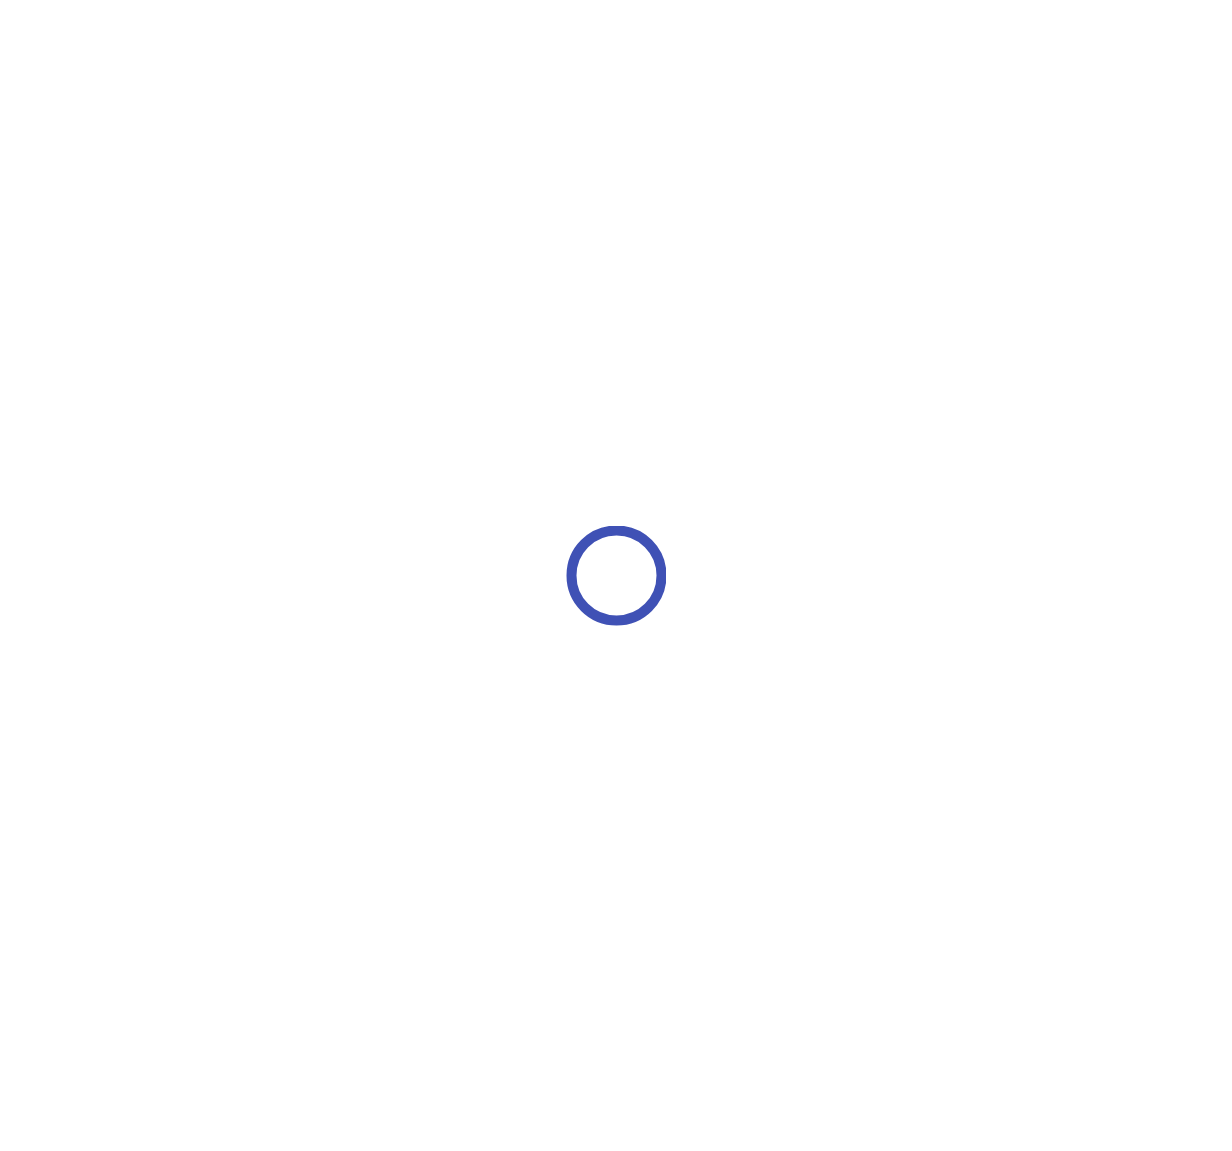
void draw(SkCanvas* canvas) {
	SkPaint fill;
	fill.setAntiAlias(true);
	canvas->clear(0xFFFFFFFF);
	canvas->save();
	canvas->clipRect(SkRect::MakeLTRB(566, 526, 666, 626));
	fill.setStyle(SkPaint::kStroke_Style);
	fill.setStrokeWidth(10);
	fill.setColor(0xFF3F51B5);
	canvas->drawPath(SkPathBuilder().moveTo(571.5f, 575.5f).cubicTo(571.5f, 550.5f, 591.5f, 530.5f, 616.5f, 530.5f).cubicTo(641.5f, 530.5f, 661.5f, 550.5f, 661.5f, 575.5f).cubicTo(661.5f, 600.5f, 641.5f, 620.5f, 616.5f, 620.5f).cubicTo(591.5f, 620.5f, 571.5f, 600.5f, 571.5f, 575.5f).detach(), fill);
	canvas->restore();
}
